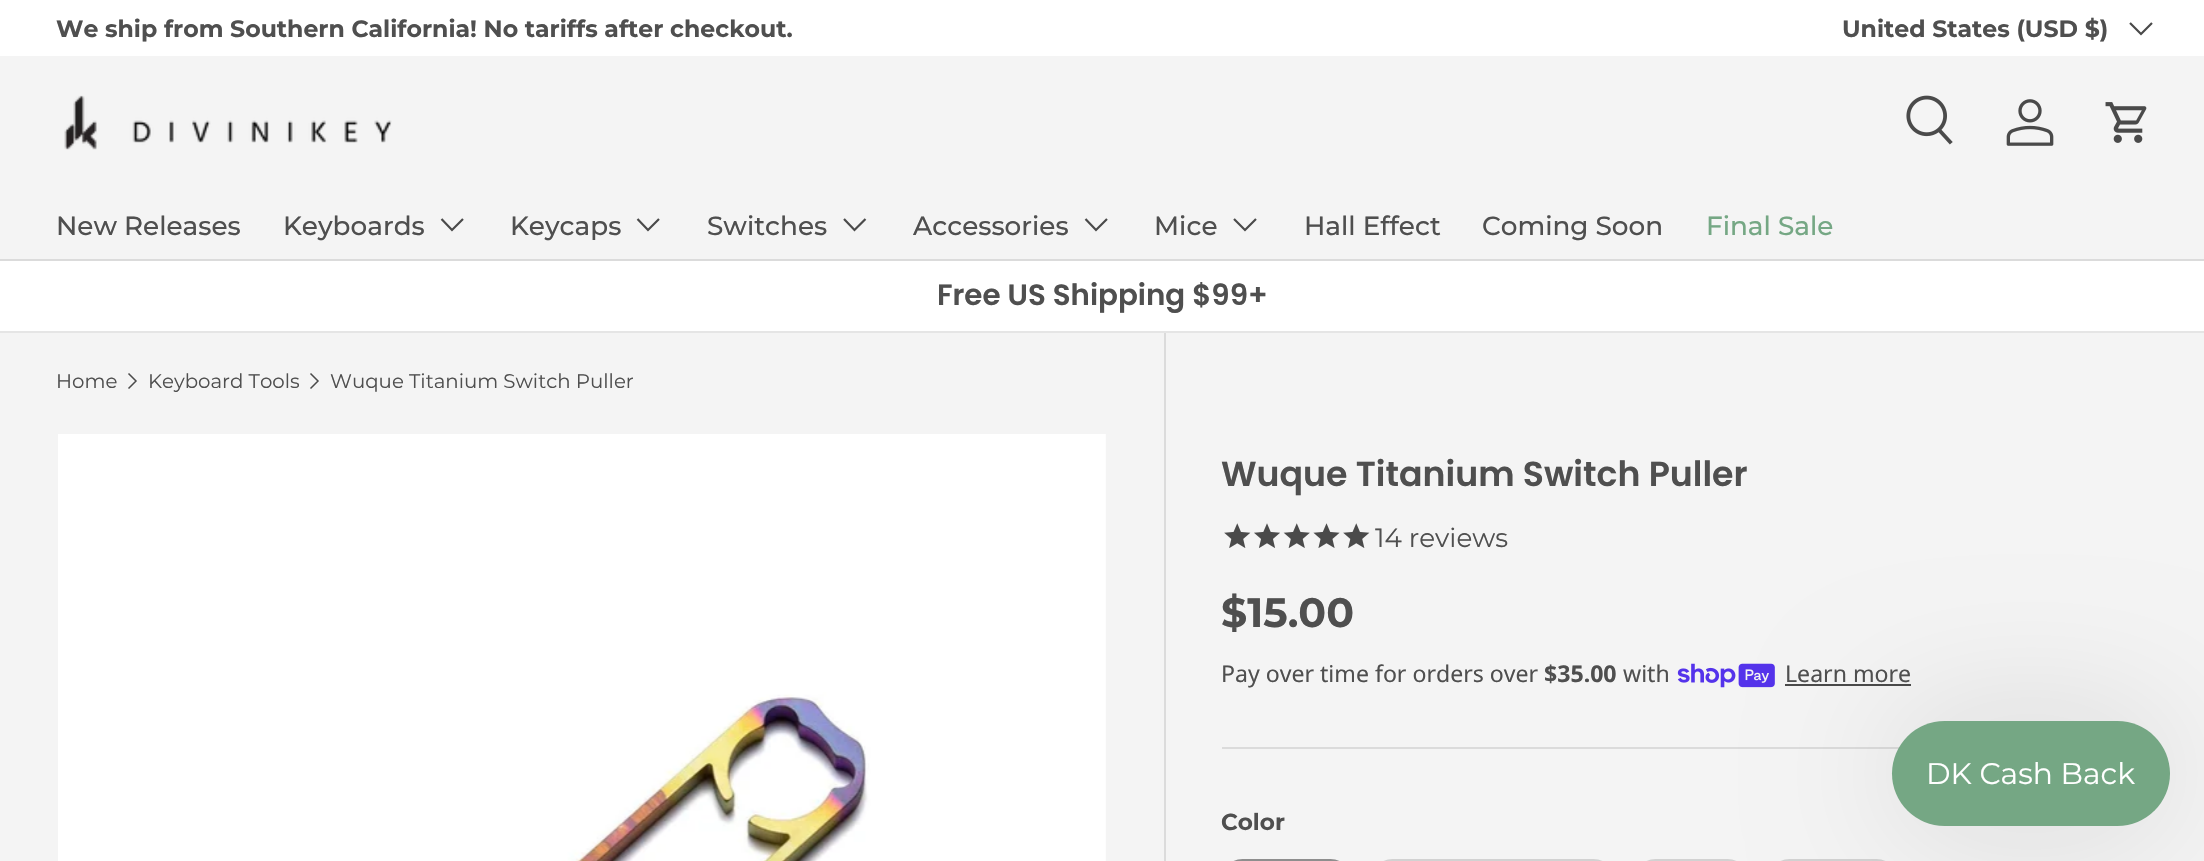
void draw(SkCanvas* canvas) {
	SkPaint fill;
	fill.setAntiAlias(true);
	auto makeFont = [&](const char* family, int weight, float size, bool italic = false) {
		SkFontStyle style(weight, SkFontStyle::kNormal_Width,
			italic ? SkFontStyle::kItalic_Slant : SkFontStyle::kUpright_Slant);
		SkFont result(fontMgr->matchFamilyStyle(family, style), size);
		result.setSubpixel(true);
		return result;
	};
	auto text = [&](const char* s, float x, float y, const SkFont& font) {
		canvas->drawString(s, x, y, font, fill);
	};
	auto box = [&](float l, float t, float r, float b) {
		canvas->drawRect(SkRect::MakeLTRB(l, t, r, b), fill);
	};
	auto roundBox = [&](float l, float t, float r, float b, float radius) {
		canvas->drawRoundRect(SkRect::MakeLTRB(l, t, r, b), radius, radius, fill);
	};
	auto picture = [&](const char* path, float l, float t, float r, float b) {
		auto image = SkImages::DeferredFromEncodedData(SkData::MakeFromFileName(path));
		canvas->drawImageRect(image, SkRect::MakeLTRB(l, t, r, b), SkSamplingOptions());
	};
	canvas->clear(0xFFF4F4F4);
	fill.setColor(0xFFFFFFFF);
	box(0, 0, 2204, 56);
	fill.setStyle(SkPaint::kStroke_Style);
	fill.setStrokeWidth(2.2f);
	fill.setColor(0xFF4A4A4A);
	canvas->drawPath(SkPathBuilder().moveTo(2152, 23).lineTo(2141, 34).lineTo(2130, 23).detach(), fill);
	fill.setStyle(SkPaint::kFill_Style);
	fill.setColor(0xFFDBDBDB);
	box(0, 259, 2204, 261);
	picture("image0.png", 64, 95, 392, 150);
	picture("image1.png", 1906, 95, 1953, 145);
	picture("image2.png", 2006, 99, 2054, 146);
	picture("image3.png", 2105, 102, 2147, 143);
	fill.setStyle(SkPaint::kStroke_Style);
	fill.setColor(0xFF4A4A4A);
	canvas->drawPath(SkPathBuilder().moveTo(463, 219).lineTo(452, 230).lineTo(441.5f, 219).detach(), fill);
	canvas->drawPath(SkPathBuilder().moveTo(659, 219).lineTo(648, 230).lineTo(637.5f, 219).detach(), fill);
	canvas->drawPath(SkPathBuilder().moveTo(865.5f, 219).lineTo(854.5f, 230).lineTo(844, 219).detach(), fill);
	canvas->drawPath(SkPathBuilder().moveTo(1107, 219).lineTo(1096, 230).lineTo(1085.5f, 219).detach(), fill);
	canvas->drawPath(SkPathBuilder().moveTo(1256, 219).lineTo(1245, 230).lineTo(1234, 219).detach(), fill);
	fill.setStyle(SkPaint::kFill_Style);
	fill.setColor(0xFFFFFFFF);
	box(0, 261, 2204, 331);
	fill.setColor(0xFFE5E5E5);
	box(0, 331, 2204, 333);
	fill.setStyle(SkPaint::kStroke_Style);
	fill.setStrokeWidth(1.5f);
	fill.setColor(0xFF4A4A4A);
	canvas->drawPath(SkPathBuilder().moveTo(128.5f, 373.5f).lineTo(136, 381).lineTo(128.5f, 388.5f).detach(), fill);
	canvas->drawPath(SkPathBuilder().moveTo(310.5f, 373.5f).lineTo(318, 381).lineTo(310.5f, 388.5f).detach(), fill);
	picture("image4.png", 58, 434, 1106, 861);
	fill.setStyle(SkPaint::kFill_Style);
	fill.setColor(0xFFDBDBDB);
	box(1164, 333, 1166, 861);
	picture("image5.png", 1224, 523, 1251, 548);
	picture("image6.png", 1254, 523, 1280, 548);
	picture("image7.png", 1283, 523, 1310, 548);
	picture("image8.png", 1313, 523, 1340, 548);
	picture("image5.png", 1343, 523, 1370, 548);
	picture("image9.png", 1677, 663, 1775, 688);
	fill.setColor(0xFF4A4A4A);
	box(1785, 684, 1911, 686);
	fill.setColor(0xFFDBDBDB);
	box(1222, 747, 1900, 749);
	fill.setStyle(SkPaint::kStroke_Style);
	fill.setStrokeWidth(2);
	fill.setColor(0xFF8E8E8E);
	canvas->drawRoundRect(SkRect::MakeLTRB(1223, 860, 1350, 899), 36, 36, fill);
	fill.setColor(0xFFD2D2D2);
	canvas->drawRoundRect(SkRect::MakeLTRB(1373, 860, 1613, 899), 36, 36, fill);
	canvas->drawRoundRect(SkRect::MakeLTRB(1636, 860, 1747, 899), 36, 36, fill);
	canvas->drawRoundRect(SkRect::MakeLTRB(1770, 860, 1896, 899), 36, 36, fill);
	fill.setStyle(SkPaint::kFill_Style);
	fill.setColor(0x1F000000);
	fill.setMaskFilter(SkMaskFilter::MakeBlur(kNormal_SkBlurStyle, 70));
	canvas->drawRoundRect(SkRect::MakeLTRB(1892, 721, 2170, 826), 52.5f, 52.5f, fill);
	fill.setMaskFilter(nullptr);
	fill.setColor(0xFF75A784);
	roundBox(1892, 721, 2170, 826, 52.5f);
	auto font1 = makeFont("Montserrat", 700, 23.6f);
	fill.setColor(0xFF4F4F4F);
	text("We ship from Southern California! No tariffs after checkout.", 56, 37, font1);
	text("United States (USD $)", 1842, 37, font1);
	auto font2 = makeFont("Montserrat", 500, 26.25f);
	text("New Releases", 56, 235, font2);
	text("Keyboards", 283, 235, font2);
	text("Keycaps", 510, 235, font2);
	text("Switches", 707, 235, font2);
	text("Accessories", 913, 235, font2);
	text("Mice", 1154, 235, font2);
	text("Hall Effect", 1304, 235, font2);
	text("Coming Soon", 1482, 235, font2);
	fill.setColor(0xFF75A784);
	text("Final Sale", 1706, 235, font2);
	auto font3 = makeFont("Poppins", 600, 29.3f);
	fill.setColor(0xFF4F4F4F);
	text("Free US Shipping $99+", 937, 305, font3);
	auto font4 = makeFont("Montserrat", 400, 19.75f);
	text("Home", 56, 388, font4);
	text("Keyboard Tools", 148, 388, font4);
	text("Wuque Titanium Switch Puller", 330, 388, font4);
	auto font5 = makeFont("Poppins", 600, 34.75f);
	text("Wuque Titanium Switch Puller", 1221, 486, font5);
	auto font6 = makeFont("Montserrat", 400, 26.25f);
	text("14 reviews", 1375, 547, font6);
	auto font7 = makeFont("Montserrat", 700, 41);
	text("$15.00", 1221, 627, font7);
	auto font8 = makeFont("Noto Sans", 400, 23.1f);
	text("Pay over time for orders over", 1221, 682, font8);
	auto font9 = makeFont("Noto Sans", 700, 23.1f);
	text("$35.00", 1544, 682, font9);
	text("with", 1623, 682, font8);
	text("Learn more", 1785, 682, font8);
	auto font10 = makeFont("Montserrat", 700, 23.1f);
	text("Color", 1221, 830, font10);
	auto font11 = makeFont("Montserrat", 400, 29.75f);
	fill.setColor(0xFFFFFFFF);
	text("DK Cash Back", 1926, 784, font11);
}
